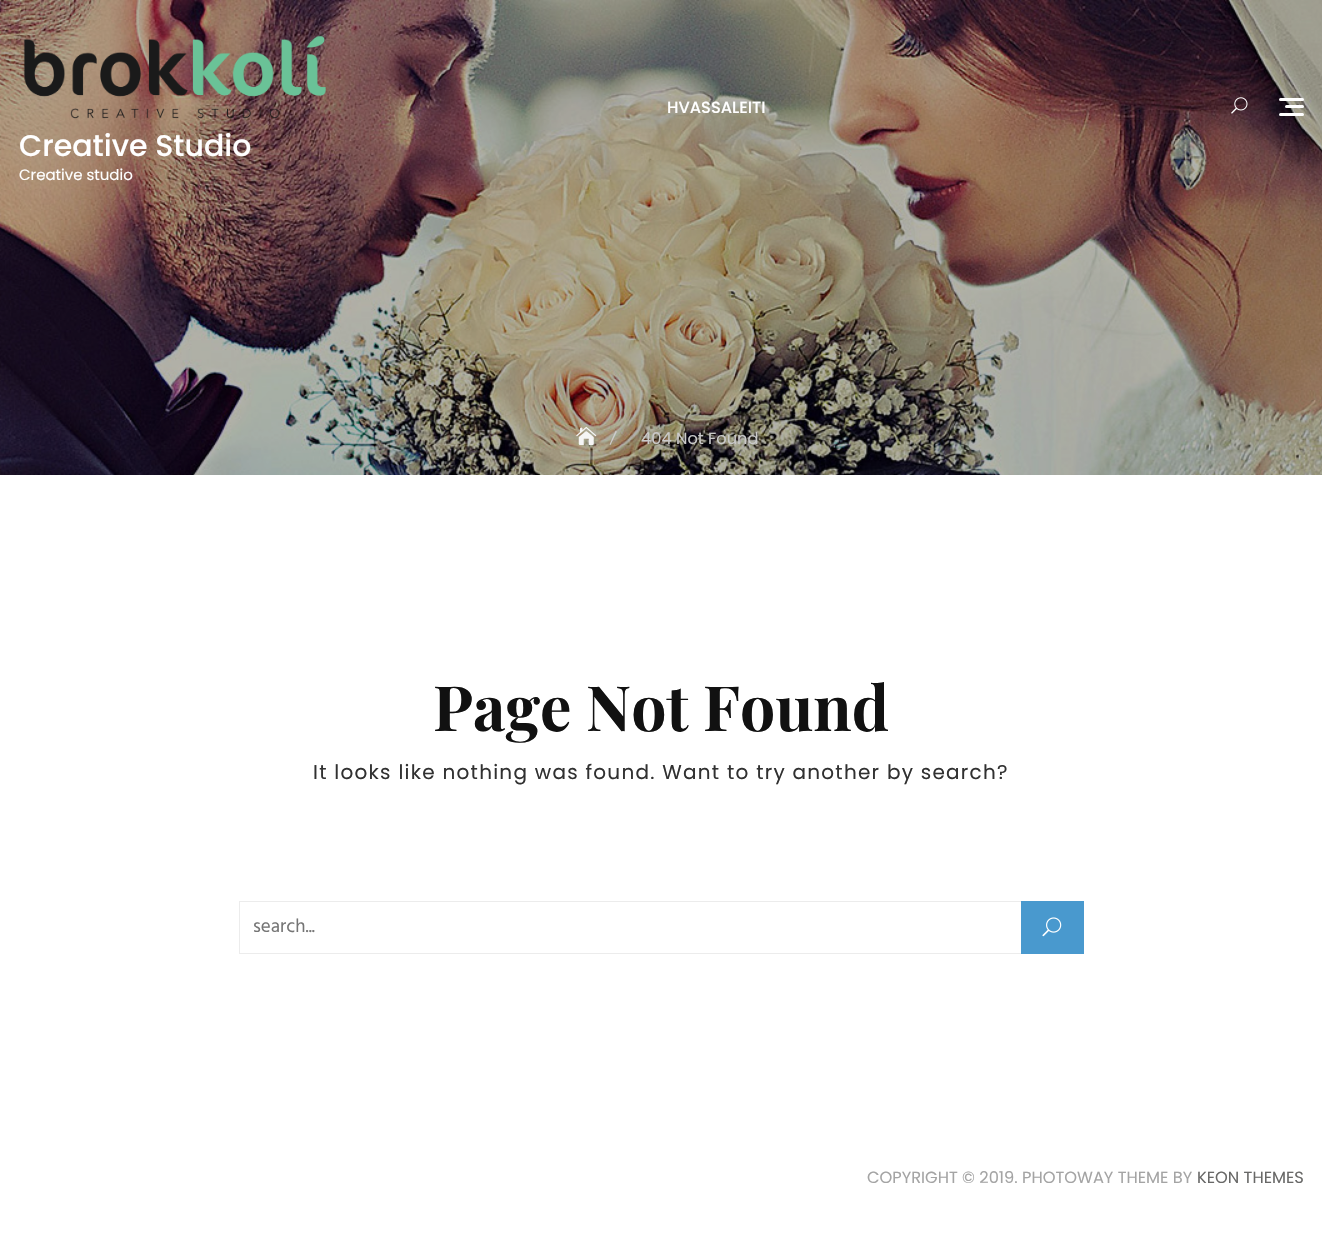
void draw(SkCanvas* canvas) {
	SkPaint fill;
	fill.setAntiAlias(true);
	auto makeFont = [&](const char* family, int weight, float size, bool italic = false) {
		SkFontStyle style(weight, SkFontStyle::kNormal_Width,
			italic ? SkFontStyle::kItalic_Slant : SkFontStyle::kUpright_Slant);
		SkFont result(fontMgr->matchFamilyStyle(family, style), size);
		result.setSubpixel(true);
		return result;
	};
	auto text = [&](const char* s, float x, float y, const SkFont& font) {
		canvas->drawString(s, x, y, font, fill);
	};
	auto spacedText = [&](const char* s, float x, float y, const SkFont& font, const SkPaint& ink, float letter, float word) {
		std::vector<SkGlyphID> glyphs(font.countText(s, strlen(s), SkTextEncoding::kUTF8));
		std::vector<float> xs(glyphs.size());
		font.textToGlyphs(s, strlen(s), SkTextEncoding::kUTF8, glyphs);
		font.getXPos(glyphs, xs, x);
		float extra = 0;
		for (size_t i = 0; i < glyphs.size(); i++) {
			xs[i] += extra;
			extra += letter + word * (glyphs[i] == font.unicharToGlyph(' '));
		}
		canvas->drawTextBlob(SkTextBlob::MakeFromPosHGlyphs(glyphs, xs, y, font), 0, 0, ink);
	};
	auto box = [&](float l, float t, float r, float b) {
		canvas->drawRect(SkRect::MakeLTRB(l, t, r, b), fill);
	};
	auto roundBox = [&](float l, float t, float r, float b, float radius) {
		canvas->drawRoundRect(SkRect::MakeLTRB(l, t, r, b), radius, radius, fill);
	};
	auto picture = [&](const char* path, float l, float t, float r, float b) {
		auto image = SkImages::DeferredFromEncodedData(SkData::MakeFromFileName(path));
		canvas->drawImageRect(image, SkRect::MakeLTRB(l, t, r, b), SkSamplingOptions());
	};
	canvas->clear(0xFFFFFFFF);
	picture("image2.png", 0, 0, 1322, 475);
	picture("image0.png", 1231, 97, 1248, 114);
	fill.setColor(0xFFFFFFFF);
	roundBox(1285, 105, 1304, 108, 1.5f);
	roundBox(1279, 98, 1304, 101, 1.5f);
	roundBox(1279, 113, 1304, 116, 1.5f);
	picture("image1.png", 23, 35, 326, 119);
	picture("image3.png", 576, 426, 597, 445);
	fill.setColor(0xFFCCCCCC);
	canvas->drawPath(SkPathBuilder().moveTo(615.5f, 431).lineTo(617, 431.5f).lineTo(610.5f, 445).lineTo(609.5f, 444.5f).close().detach(), fill);
	fill.setStyle(SkPaint::kStroke_Style);
	fill.setStrokeWidth(1);
	fill.setColor(0xFFECECEC);
	canvas->drawRect(SkRect::MakeLTRB(239.5f, 901.5f, 1083.5f, 953.5f), fill);
	fill.setStyle(SkPaint::kFill_Style);
	fill.setColor(0xFF4999CE);
	box(1021, 901, 1084, 954);
	picture("image4.png", 1042, 917, 1062, 937);
	auto font1 = makeFont("Poppins", 500, 16.25f);
	fill.setColor(0xFFFFFFFF);
	text("HVASSALEITI", 667, 113, font1);
	auto font2 = makeFont("Poppins", 500, 30);
	text("Creative Studio", 19, 156, font2);
	auto font3 = makeFont("Poppins", 400, 15);
	text("Creative studio", 19, 180, font3);
	auto font4 = makeFont("Poppins", 400, 16.25f);
	fill.setColor(0xFFCACACA);
	text("404 Not Found", 641, 444, font4);
	auto font5 = makeFont("Playfair Display", 700, 62.5f);
	fill.setColor(0xFF111111);
	text("Page Not Found", 433, 731, font5);
	auto font6 = makeFont("Poppins", 400, 20);
	fill.setColor(0xFF313131);
	spacedText("It looks like nothing was found. Want to try another by search?", 313, 779, font6, fill, 1.25f, 0);
	auto font7 = makeFont("Hind", 400, 19);
	fill.setColor(0xFF757575);
	text("search...", 253, 932, font7);
	fill.setColor(0xFFA4A4A4);
	text("COPYRIGHT © 2019. PHOTOWAY THEME BY", 867, 1183, font4);
	fill.setColor(0xFF686867);
	text("KEON THEMES", 1197, 1183, font4);
}
